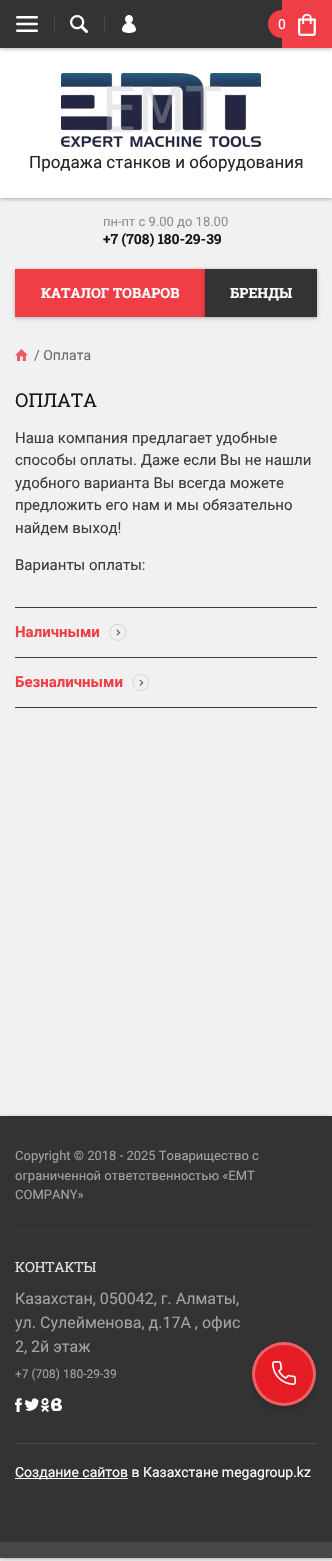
void draw(SkCanvas* canvas) {
	SkPaint fill;
	fill.setAntiAlias(true);
	auto makeFont = [&](const char* family, int weight, float size, bool italic = false) {
		SkFontStyle style(weight, SkFontStyle::kNormal_Width,
			italic ? SkFontStyle::kItalic_Slant : SkFontStyle::kUpright_Slant);
		SkFont result(fontMgr->matchFamilyStyle(family, style), size);
		result.setSubpixel(true);
		return result;
	};
	auto text = [&](const char* s, float x, float y, const SkFont& font) {
		canvas->drawString(s, x, y, font, fill);
	};
	auto box = [&](float l, float t, float r, float b) {
		canvas->drawRect(SkRect::MakeLTRB(l, t, r, b), fill);
	};
	auto picture = [&](const char* path, float l, float t, float r, float b) {
		auto image = SkImages::DeferredFromEncodedData(SkData::MakeFromFileName(path));
		canvas->drawImageRect(image, SkRect::MakeLTRB(l, t, r, b), SkSamplingOptions());
	};
	canvas->clear(0xFFF1F1F1);
	fill.setColor(0x47000000);
	fill.setMaskFilter(SkMaskFilter::MakeBlur(kNormal_SkBlurStyle, 2));
	canvas->drawRect(SkRect::MakeLTRB(0, 49, 332, 199), fill);
	fill.setMaskFilter(nullptr);
	fill.setColor(0xFFFFFFFF);
	box(0, 48, 332, 198);
	fill.setColor(0x47000000);
	fill.setMaskFilter(SkMaskFilter::MakeBlur(kNormal_SkBlurStyle, 2));
	canvas->drawRect(SkRect::MakeLTRB(0, 1, 332, 49), fill);
	fill.setMaskFilter(nullptr);
	fill.setColor(0xFF333333);
	box(0, 0, 282, 48);
	picture("image0.png", 16, 16, 38, 32);
	fill.setColor(0xFF474747);
	box(54, 14, 55, 34);
	picture("image1.png", 70, 15, 88, 33);
	box(104, 14, 105, 34);
	picture("image2.png", 122, 15, 136, 33);
	fill.setColor(0xFFEF3E46);
	box(282, 0, 332, 48);
	canvas->drawCircle(282, 24, 14, fill);
	picture("image3.png", 298, 13, 316, 36);
	picture("image4.png", 61, 73, 261, 147);
	fill.setColor(0x47000000);
	fill.setMaskFilter(SkMaskFilter::MakeBlur(kNormal_SkBlurStyle, 2));
	canvas->drawRect(SkRect::MakeLTRB(15, 270, 205, 318), fill);
	fill.setMaskFilter(nullptr);
	fill.setColor(0xFFEF3E46);
	box(15, 269, 205, 317);
	fill.setColor(0x47000000);
	fill.setMaskFilter(SkMaskFilter::MakeBlur(kNormal_SkBlurStyle, 2));
	canvas->drawRect(SkRect::MakeLTRB(205, 270, 317, 318), fill);
	fill.setMaskFilter(nullptr);
	fill.setColor(0xFF333333);
	box(205, 269, 317, 317);
	picture("image5.png", 15, 349, 28, 361);
	fill.setColor(0xFF3C3C3C);
	box(15, 607, 317, 608);
	box(15, 657, 317, 658);
	picture("image6.png", 109, 624, 126, 641);
	box(15, 707, 317, 708);
	picture("image7.png", 132, 674, 150, 691);
	fill.setColor(0x47000000);
	fill.setMaskFilter(SkMaskFilter::MakeBlur(kNormal_SkBlurStyle, 2));
	canvas->drawRect(SkRect::MakeLTRB(0, 1117, 332, 1559), fill);
	fill.setMaskFilter(nullptr);
	fill.setColor(0xFF333333);
	box(0, 1116, 332, 1542);
	fill.setColor(0xFF474747);
	box(0, 1542, 332, 1558);
	fill.setColor(0xFF3E3E3E);
	box(15, 1230, 317, 1231);
	picture("image8.png", 15, 1398, 23, 1413);
	picture("image9.png", 24, 1398, 39, 1412);
	picture("image10.png", 41, 1398, 50, 1412);
	picture("image11.png", 51, 1398, 63, 1412);
	fill.setColor(0xFF474747);
	box(15, 1443, 317, 1444);
	fill.setColor(0xFFFFFFFF);
	box(15, 1478, 128, 1479);
	picture("image12.png", 252, 1342, 316, 1411);
	auto font1 = makeFont("Roboto", 400, 14);
	text("0", 278, 29, font1);
	auto font2 = makeFont("Roboto", 400, 17);
	fill.setColor(0xFF262626);
	text("Продажа станков и оборудования", 29, 168, font2);
	auto font3 = makeFont("Roboto", 400, 13);
	fill.setColor(0xFF8D8D8D);
	text("пн-пт c 9.00 до 18.00", 103, 226, font3);
	auto font4 = makeFont("Roboto Slab", 700, 14);
	fill.setColor(0xFF181818);
	text("+7 (708) 180-29-39", 103, 244, font4);
	fill.setColor(0xFFFFFFFF);
	text("КАТАЛОГ ТОВАРОВ", 41, 298, font4);
	text("БРЕНДЫ", 230, 298, font4);
	fill.setColor(0xFF6C6C6C);
	text("/ Оплата", 34, 360, font1);
	auto font5 = makeFont("Roboto Slab", 400, 19);
	fill.setColor(0xFF181818);
	text("ОПЛАТА", 15, 407, font5);
	auto font6 = makeFont("Roboto", 400, 15);
	fill.setColor(0xFF3C3C3C);
	text("Наша компания предлагает удобные", 15, 443, font6);
	text("способы оплаты. Даже если Вы не нашли", 15, 465, font6);
	text("удобного варианта Вы всегда можете", 15, 488, font6);
	text("предложить его нам и мы обязательно", 15, 510, font6);
	text("найдем выход!", 15, 533, font6);
	text("Варианты оплаты:", 15, 570, font6);
	auto font7 = makeFont("Roboto", 700, 15);
	fill.setColor(0xFFEF3E46);
	text("Наличными", 15, 637, font7);
	text("Безналичными", 15, 687, font7);
	fill.setColor(0xFFA3A3A3);
	text("Copyright © 2018 - 2025 Товарищество с", 15, 1160, font3);
	text("ограниченной ответственностью «EMT", 15, 1180, font3);
	text("COMPANY»", 15, 1199, font3);
	auto font8 = makeFont("Roboto Slab", 400, 14);
	fill.setColor(0xFFE0E0E0);
	text("КОНТАКТЫ", 15, 1272, font8);
	auto font9 = makeFont("Roboto", 400, 16);
	fill.setColor(0xFFA3A3A3);
	text("Казахстан, 050042, г. Алматы,", 15, 1304, font9);
	text("ул. Сулейменова, д.17А , офис", 15, 1328, font9);
	text("2, 2й этаж", 15, 1352, font9);
	auto font10 = makeFont("Roboto", 400, 12);
	text("+7 (708) 180-29-39", 15, 1378, font10);
	fill.setColor(0xFFFFFFFF);
	text("Создание сайтов в Казахстане megagroup.kz", 15, 1477, font1);
}
